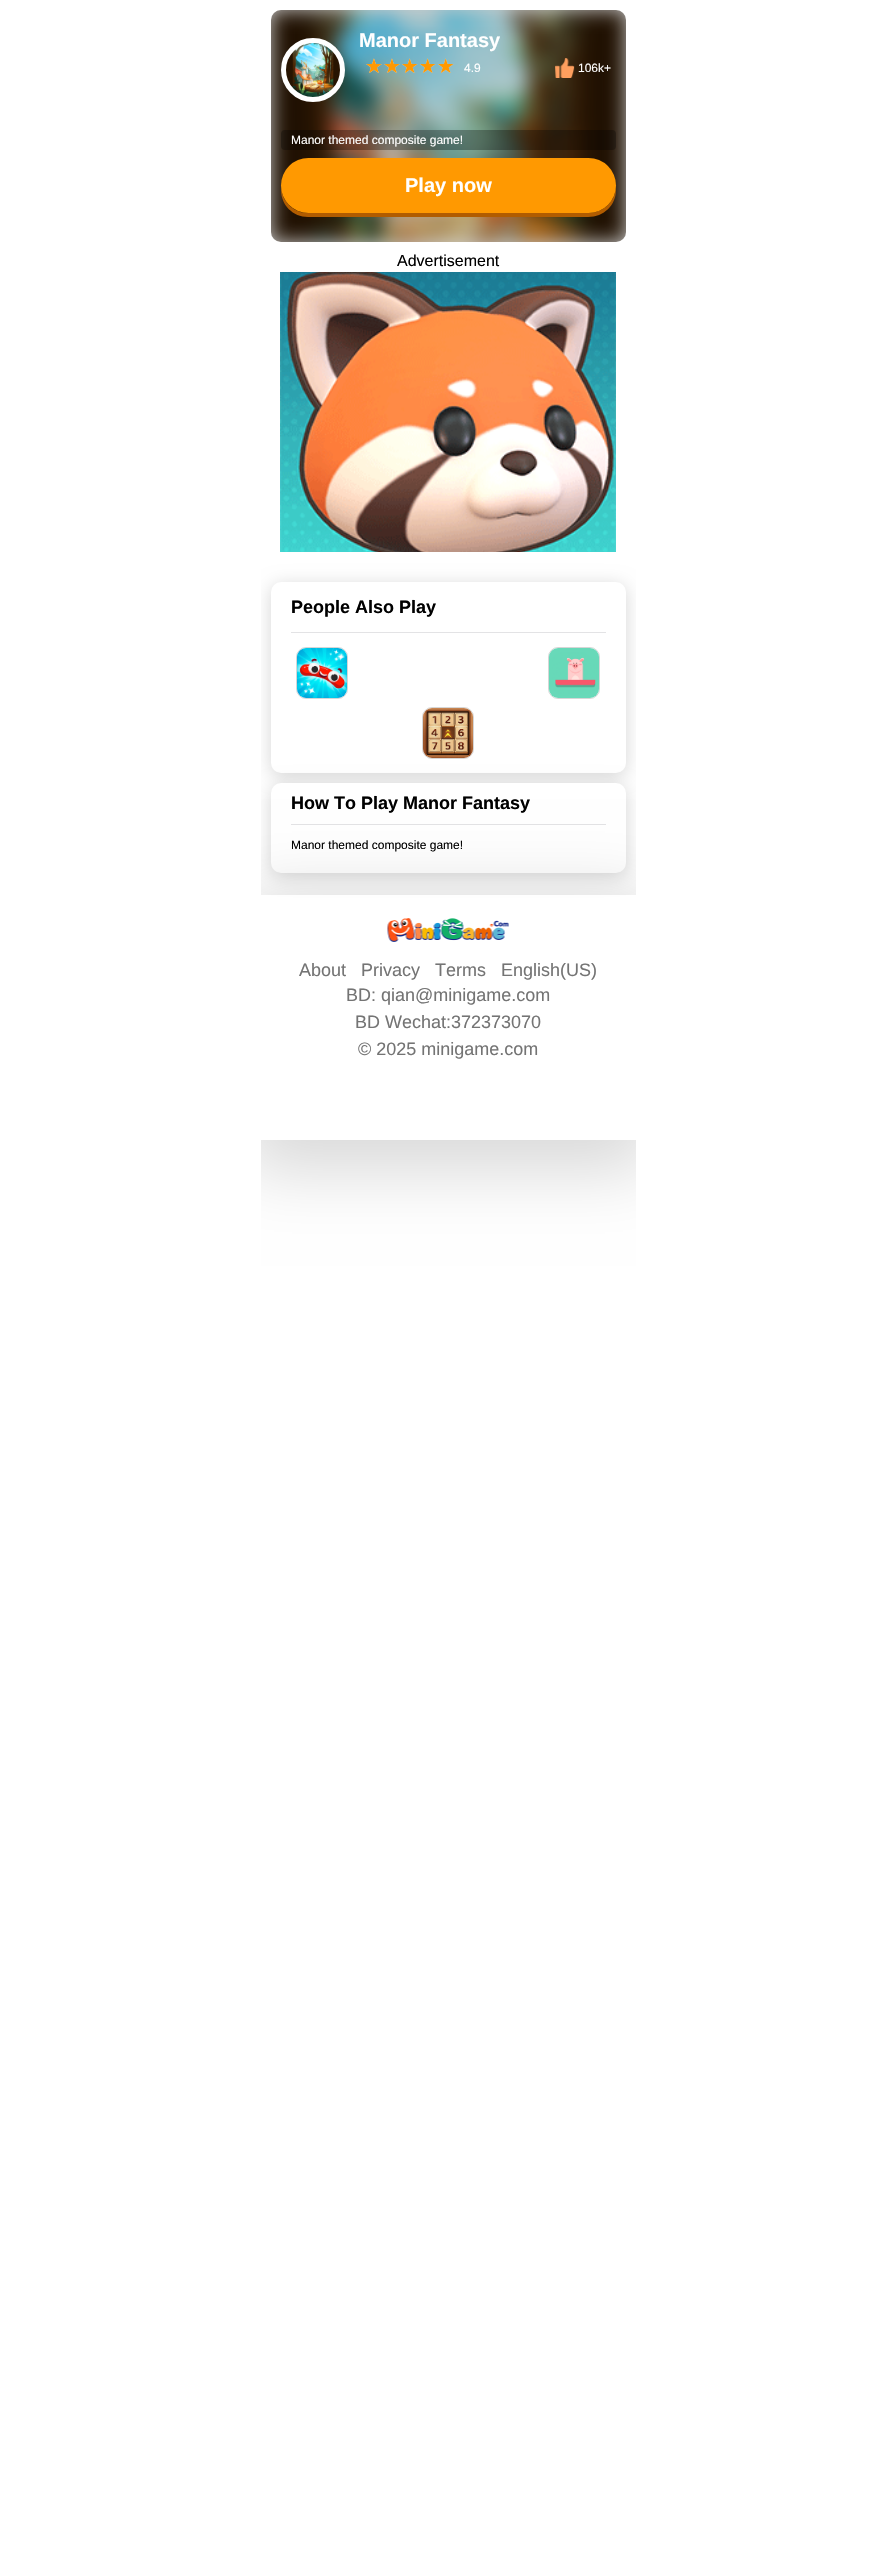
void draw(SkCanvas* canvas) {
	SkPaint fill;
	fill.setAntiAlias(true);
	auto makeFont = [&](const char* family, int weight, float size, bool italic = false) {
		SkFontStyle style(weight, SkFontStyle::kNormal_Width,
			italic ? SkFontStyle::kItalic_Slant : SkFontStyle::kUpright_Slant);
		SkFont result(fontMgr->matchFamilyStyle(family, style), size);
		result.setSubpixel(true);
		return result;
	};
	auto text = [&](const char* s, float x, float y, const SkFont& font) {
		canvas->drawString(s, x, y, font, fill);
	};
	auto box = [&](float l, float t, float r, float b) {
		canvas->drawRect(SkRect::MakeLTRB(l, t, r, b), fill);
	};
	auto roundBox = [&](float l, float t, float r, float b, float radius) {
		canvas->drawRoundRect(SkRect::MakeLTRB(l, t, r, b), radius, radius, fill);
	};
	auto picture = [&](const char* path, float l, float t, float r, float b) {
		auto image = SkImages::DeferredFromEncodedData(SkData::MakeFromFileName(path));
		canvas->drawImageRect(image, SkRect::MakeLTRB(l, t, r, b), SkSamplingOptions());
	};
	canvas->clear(0xFFFFFFFF);
	picture("image0.png", 271, 10, 626, 242);
	fill.setColor(0x33000000);
	roundBox(271, 10, 626, 242, 10);
	picture("image1.png", 286, 43, 340, 97);
	fill.setStyle(SkPaint::kStroke_Style);
	fill.setStrokeWidth(5);
	fill.setColor(0xFFFFFFFF);
	canvas->drawCircle(313, 70, 29.5f, fill);
	picture("image2.png", 555, 58, 575, 78);
	fill.setStyle(SkPaint::kFill_Style);
	fill.setColor(0x4D000000);
	roundBox(281, 130, 616, 150, 4);
	fill.setColor(0xFFB15C00);
	canvas->drawPath(SkPathBuilder().moveTo(281, 187).lineTo(281, 190).cubicTo(281, 205, 293, 217, 308, 217).lineTo(588, 217).cubicTo(604, 217, 616, 205, 616, 190).lineTo(616, 187).cubicTo(615, 202, 603, 213, 588, 213).lineTo(308, 213).cubicTo(294, 213, 282, 202, 281, 187).close().detach(), fill);
	fill.setColor(0xFFFF9901);
	roundBox(281, 158, 616, 213, 27.5f);
	picture("image3.png", 280, 272, 616, 552);
	canvas->save();
	canvas->clipRect(SkRect::MakeLTRB(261, 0, 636, 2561));
	fill.setColor(0x29000000);
	fill.setMaskFilter(SkMaskFilter::MakeBlur(kNormal_SkBlurStyle, 9));
	canvas->drawRoundRect(SkRect::MakeLTRB(271, 585, 626, 776), 10, 10, fill);
	fill.setMaskFilter(nullptr);
	canvas->restore();
	fill.setColor(0xFFFFFFFF);
	roundBox(271, 582, 626, 773, 10);
	fill.setColor(0xFFE3E3E5);
	box(291, 632, 606, 633);
	fill.setStyle(SkPaint::kStroke_Style);
	fill.setStrokeWidth(1);
	fill.setColor(0xFFD6D6D6);
	canvas->drawRoundRect(SkRect::MakeLTRB(296.5f, 647.5f, 347.5f, 698.5f), 9.5f, 9.5f, fill);
	picture("image4.png", 297, 648, 347, 698);
	canvas->drawRoundRect(SkRect::MakeLTRB(548.5f, 647.5f, 599.5f, 698.5f), 9.5f, 9.5f, fill);
	picture("image5.png", 549, 648, 599, 698);
	canvas->drawRoundRect(SkRect::MakeLTRB(422.5f, 707.5f, 473.5f, 758.5f), 9.5f, 9.5f, fill);
	picture("image6.png", 423, 708, 473, 758);
	canvas->save();
	canvas->clipRect(SkRect::MakeLTRB(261, 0, 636, 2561));
	fill.setStyle(SkPaint::kFill_Style);
	fill.setColor(0x29000000);
	fill.setMaskFilter(SkMaskFilter::MakeBlur(kNormal_SkBlurStyle, 9));
	canvas->drawRoundRect(SkRect::MakeLTRB(271, 786, 626, 876), 10, 10, fill);
	fill.setMaskFilter(nullptr);
	canvas->restore();
	fill.setColor(0xFFFFFFFF);
	roundBox(271, 783, 626, 873, 10);
	fill.setColor(0xFFE3E3E5);
	box(291, 824, 606, 825);
	canvas->save();
	canvas->clipRect(SkRect::MakeLTRB(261, 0, 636, 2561));
	canvas->clipPath(SkPathBuilder(SkPathFillType::kEvenOdd).moveTo(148, 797).lineTo(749, 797).lineTo(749, 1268).lineTo(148, 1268).close().moveTo(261, 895).lineTo(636, 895).lineTo(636, 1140).lineTo(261, 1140).close().detach(), true);
	fill.setColor(0x26000000);
	fill.setMaskFilter(SkMaskFilter::MakeBlur(kNormal_SkBlurStyle, 32));
	canvas->drawRect(SkRect::MakeLTRB(245, 894, 652, 1171), fill);
	fill.setMaskFilter(nullptr);
	canvas->restore();
	picture("image7.png", 387, 918, 509, 942);
	auto font1 = makeFont("Liberation Sans", 700, 20);
	fill.setColor(0xFFFFFFFF);
	text("Manor Fantasy", 359, 47, font1);
	auto font2 = makeFont("DejaVu Sans", 400, 20);
	fill.setColor(0xFFDDDDDD);
	text("★★★★★", 365, 73, font2);
	fill.setColor(0xFFFF9901);
	text("★★★★★", 365, 73, font2);
	auto font3 = makeFont("Liberation Sans", 400, 12);
	fill.setColor(0xFFFFFFFF);
	text("4.9", 464, 72, font3);
	text("106k+", 578, 72, font3);
	text("Manor themed composite game!", 291, 144, font3);
	text("Play now", 405, 192, font1);
	auto font4 = makeFont("Liberation Sans", 400, 16);
	fill.setColor(0xFF000000);
	text("Advertisement", 397, 266, font4);
	auto font5 = makeFont("Liberation Sans", 700, 18);
	text("People Also Play", 291, 613, font5);
	text("How To Play Manor Fantasy", 291, 809, font5);
	text("Manor themed composite game!", 291, 849, font3);
	auto font6 = makeFont("Liberation Sans", 400, 18);
	fill.setColor(0xFF747474);
	text("About", 299, 976, font6);
	text("Privacy", 361, 976, font6);
	text("Terms", 435, 976, font6);
	text("English(US)", 501, 976, font6);
	text("BD: qian@minigame.com", 346, 1001, font6);
	text("BD Wechat:372373070", 355, 1028, font6);
	text("© 2025 minigame.com", 358, 1055, font6);
}
